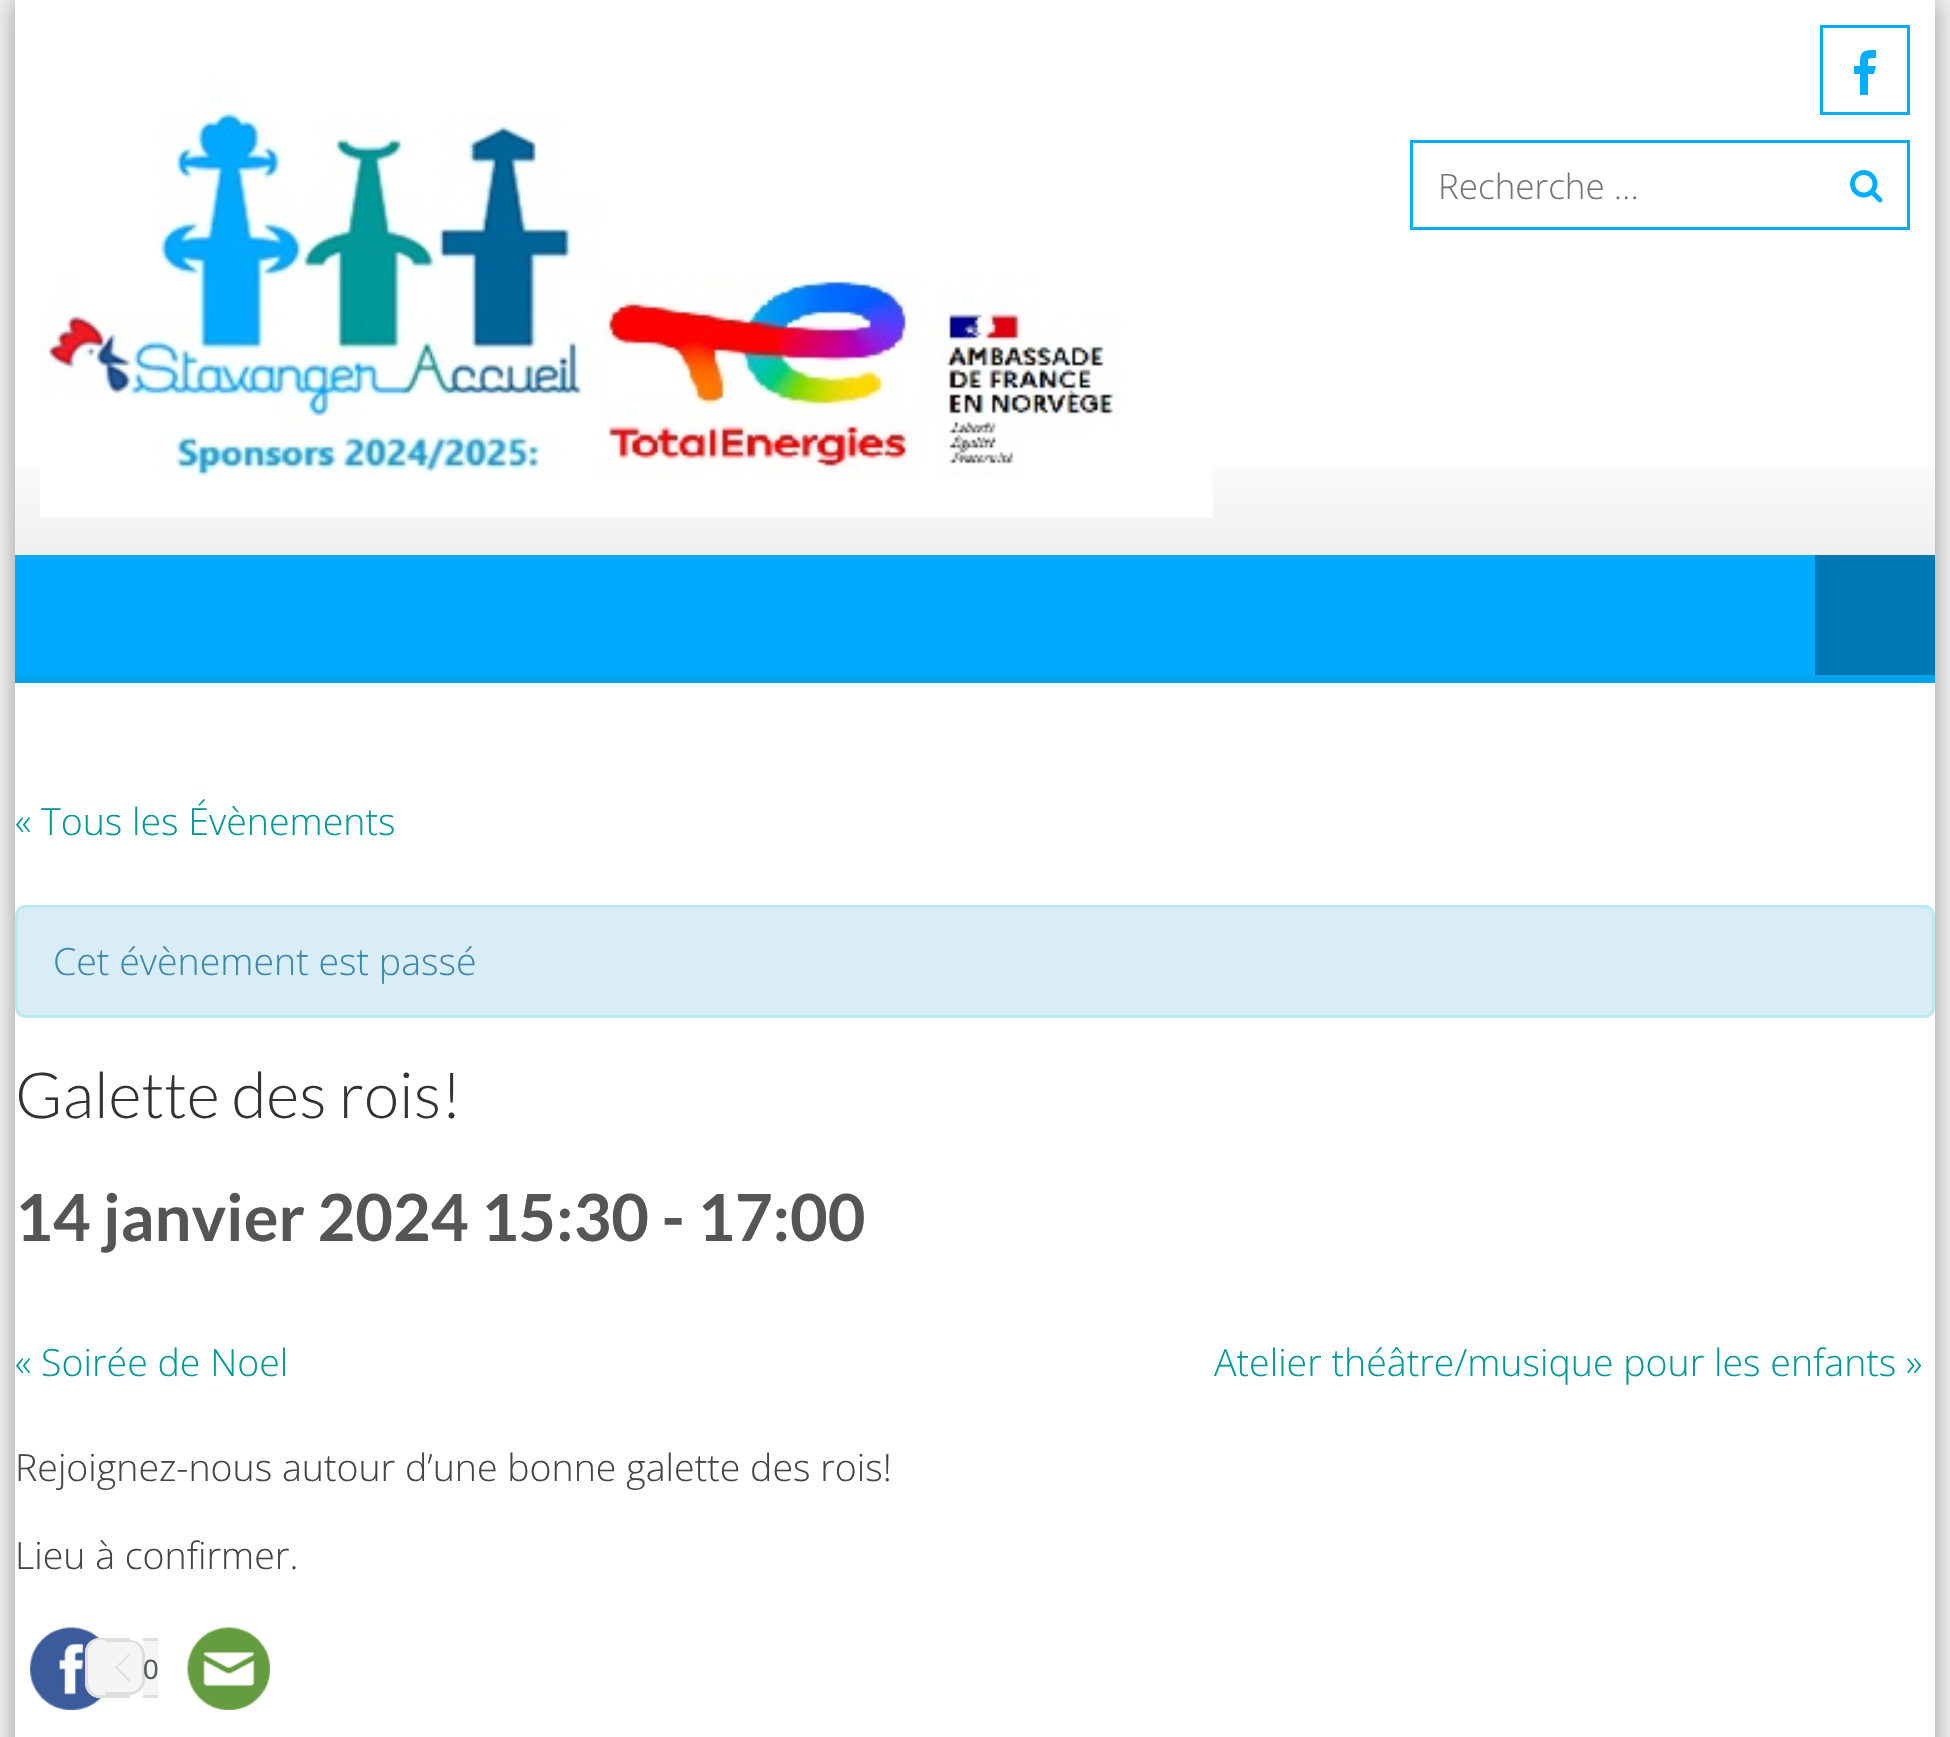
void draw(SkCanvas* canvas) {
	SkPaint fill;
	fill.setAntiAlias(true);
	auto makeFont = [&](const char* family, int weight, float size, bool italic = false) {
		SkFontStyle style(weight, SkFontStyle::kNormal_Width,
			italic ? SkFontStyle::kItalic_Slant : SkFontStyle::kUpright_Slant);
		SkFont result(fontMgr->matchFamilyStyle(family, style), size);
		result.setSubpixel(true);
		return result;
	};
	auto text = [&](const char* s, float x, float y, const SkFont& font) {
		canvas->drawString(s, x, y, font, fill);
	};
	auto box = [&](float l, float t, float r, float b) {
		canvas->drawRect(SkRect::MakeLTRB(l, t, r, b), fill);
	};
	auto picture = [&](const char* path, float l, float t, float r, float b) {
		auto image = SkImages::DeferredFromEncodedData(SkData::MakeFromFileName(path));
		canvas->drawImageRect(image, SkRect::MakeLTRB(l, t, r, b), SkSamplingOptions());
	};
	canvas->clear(0xFFF2F2F2);
	fill.setColor(0xFF999999);
	fill.setMaskFilter(SkMaskFilter::MakeBlur(kNormal_SkBlurStyle, 12.5f));
	canvas->drawRect(SkRect::MakeLTRB(15, 0, 1935, 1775), fill);
	fill.setMaskFilter(nullptr);
	fill.setColor(0xFFFFFFFF);
	box(15, 0, 1935, 1737);
	picture("image0.png", 15, 465, 1935, 555);
	picture("image1.png", 40, 79, 1213, 518);
	fill.setStyle(SkPaint::kStroke_Style);
	fill.setStrokeWidth(3);
	fill.setColor(0xFF01AEFD);
	canvas->drawRect(SkRect::MakeLTRB(1821.5f, 26.5f, 1908.5f, 113.5f), fill);
	fill.setStyle(SkPaint::kFill_Style);
	canvas->drawPath(SkPathBuilder().moveTo(1876, 66).lineTo(1874, 74).lineTo(1868, 74).lineTo(1868, 95).lineTo(1860, 95).lineTo(1860, 74).lineTo(1854, 74).lineTo(1854, 66).lineTo(1860, 66).cubicTo(1860, 52, 1861, 50, 1876, 50).lineTo(1876, 58).cubicTo(1867, 58, 1868, 58, 1868, 66).close().detach(), fill);
	fill.setStyle(SkPaint::kStroke_Style);
	canvas->drawRect(SkRect::MakeLTRB(1411.5f, 141.5f, 1908.5f, 228.5f), fill);
	picture("image2.png", 1850, 170, 1883, 203);
	fill.setStyle(SkPaint::kFill_Style);
	fill.setColor(0xFF00ABFF);
	box(15, 555, 1815, 675);
	fill.setColor(0xFF04A3ED);
	box(15, 675, 1935, 683);
	fill.setColor(0xFF0078B3);
	box(1815, 555, 1935, 675);
	fill.setColor(0xFFD9EDF7);
	canvas->drawRoundRect(SkRect::MakeLTRB(16.5f, 906.5f, 1933.5f, 1016.5f), 8.5f, 8.5f, fill);
	fill.setStyle(SkPaint::kStroke_Style);
	fill.setColor(0xFFBCE8F1);
	canvas->drawRoundRect(SkRect::MakeLTRB(16.5f, 906.5f, 1933.5f, 1016.5f), 8.5f, 8.5f, fill);
	picture("image3.png", 30, 1627, 102, 1710);
	fill.setStyle(SkPaint::kFill_Style);
	fill.setColor(0xFFF5F5F5);
	canvas->drawPath(SkPathBuilder().moveTo(100, 1638).lineTo(130, 1638).lineTo(130, 1698).lineTo(100, 1698).cubicTo(91.5f, 1698, 85, 1691.5f, 85, 1683).lineTo(85, 1653).cubicTo(85, 1644.5f, 91.5f, 1638, 100, 1638).close().detach(), fill);
	fill.setColor(0xFFE0DDDD);
	canvas->drawPath(SkPathBuilder(SkPathFillType::kEvenOdd).moveTo(100, 1638).lineTo(130, 1638).lineTo(130, 1698).lineTo(100, 1698).cubicTo(92, 1698, 85, 1691, 85, 1682).lineTo(85, 1652).cubicTo(85, 1644, 92, 1638, 100, 1638).close().moveTo(100, 1640).lineTo(130, 1640).lineTo(130, 1695).lineTo(100, 1695).cubicTo(93, 1695, 88, 1689, 88, 1682).lineTo(88, 1652).cubicTo(88, 1646, 93, 1640, 100, 1640).close().detach(), fill);
	fill.setColor(0xFFF5F5F5);
	box(143, 1641, 158, 1695);
	fill.setColor(0xFFE0DDDD);
	box(143, 1638, 158, 1641);
	box(143, 1695, 158, 1698);
	fill.setColor(0xFFF5F5F5);
	canvas->drawPath(SkPathBuilder().moveTo(105, 1640).lineTo(130, 1640).cubicTo(138.5f, 1640, 145, 1646.5f, 145, 1655).lineTo(145, 1680).cubicTo(145, 1688.5f, 138.5f, 1695, 130, 1695).lineTo(105, 1695).close().detach(), fill);
	fill.setColor(0xFFE0DDDD);
	canvas->drawPath(SkPathBuilder(SkPathFillType::kEvenOdd).moveTo(105, 1640).lineTo(130, 1640).cubicTo(138, 1640, 145, 1647, 145, 1655).lineTo(145, 1680).cubicTo(145, 1688, 138, 1695, 130, 1695).lineTo(105, 1695).close().moveTo(105, 1642).lineTo(130, 1642).cubicTo(137, 1642, 142, 1648, 142, 1655).lineTo(142, 1680).cubicTo(142, 1687, 137, 1692, 130, 1692).lineTo(105, 1692).close().detach(), fill);
	canvas->drawPath(SkPathBuilder().moveTo(130, 1652.5f).lineTo(130, 1682.5f).lineTo(115, 1667.5f).close().detach(), fill);
	fill.setColor(0xFFF5F5F5);
	canvas->drawPath(SkPathBuilder().moveTo(130, 1655).lineTo(130, 1680).lineTo(117.5f, 1667.5f).close().detach(), fill);
	picture("image4.png", 187, 1627, 270, 1710);
	auto font1 = makeFont("Open Sans", 300, 35);
	fill.setColor(0xFF757575);
	text("Recherche ...", 1438, 199, font1);
	auto font2 = makeFont("Open Sans", 300, 37.5f);
	fill.setColor(0xFF009999);
	text("« Tous les Évènements", 15, 835, font2);
	fill.setColor(0xFF3A87AD);
	text("Cet évènement est passé", 53, 975, font2);
	auto font3 = makeFont("Lato", 300, 63.75f);
	fill.setColor(0xFF333333);
	text("Galette des rois!", 15, 1118, font3);
	auto font4 = makeFont("Lato", 700, 65);
	fill.setColor(0xFF555555);
	text("14 janvier 2024 15:30 - 17:00", 15, 1241, font4);
	fill.setColor(0xFF009999);
	text("« Soirée de Noel", 15, 1376, font2);
	text("Atelier théâtre/musique pour les enfants »", 1214, 1376, font2);
	fill.setColor(0xFF444444);
	text("Rejoignez-nous autour d’une bonne galette des rois!", 15, 1481, font2);
	text("Lieu à confirmer.", 15, 1569, font2);
	auto font5 = makeFont("Liberation Sans", 400, 28);
	fill.setColor(0xFF555E58);
	text("0", 143, 1679, font5);
}
